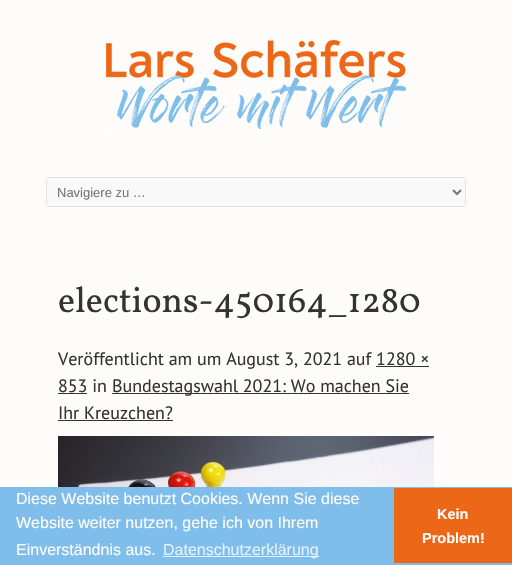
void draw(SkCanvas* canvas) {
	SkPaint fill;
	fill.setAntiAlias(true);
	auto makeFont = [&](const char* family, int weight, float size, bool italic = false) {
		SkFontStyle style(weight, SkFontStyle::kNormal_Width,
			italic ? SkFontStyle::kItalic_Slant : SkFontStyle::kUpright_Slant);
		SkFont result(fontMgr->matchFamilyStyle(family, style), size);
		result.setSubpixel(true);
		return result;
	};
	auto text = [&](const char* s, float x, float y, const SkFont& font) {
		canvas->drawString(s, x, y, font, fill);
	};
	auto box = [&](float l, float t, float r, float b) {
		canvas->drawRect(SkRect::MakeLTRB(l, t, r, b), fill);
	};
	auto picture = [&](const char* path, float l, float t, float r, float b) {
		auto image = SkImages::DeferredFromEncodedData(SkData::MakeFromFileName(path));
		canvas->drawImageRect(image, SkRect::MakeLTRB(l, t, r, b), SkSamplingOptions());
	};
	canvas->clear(0xFFFEFCFA);
	picture("image0.png", 106, 40, 406, 129);
	fill.setColor(0xFFF9F9F9);
	canvas->drawRoundRect(SkRect::MakeLTRB(46.5f, 177.5f, 465.5f, 206.5f), 2.5f, 2.5f, fill);
	fill.setStyle(SkPaint::kStroke_Style);
	fill.setStrokeWidth(1);
	fill.setColor(0xFFE3E3E3);
	canvas->drawRoundRect(SkRect::MakeLTRB(46.5f, 177.5f, 465.5f, 206.5f), 2.5f, 2.5f, fill);
	fill.setStrokeWidth(2);
	fill.setColor(0xFF777777);
	canvas->drawPath(SkPathBuilder().moveTo(453, 190).lineTo(457, 194).lineTo(461, 190).detach(), fill);
	fill.setStyle(SkPaint::kFill_Style);
	fill.setColor(0xFF333333);
	box(376, 366, 429, 367);
	box(58, 393, 87, 394);
	box(112, 393, 409, 394);
	box(58, 420, 173, 421);
	picture("image1.png", 58, 436, 434, 487);
	fill.setColor(0xFF7FBEEA);
	box(0, 487, 512, 565);
	fill.setColor(0xFFE5F0F7);
	box(163, 556, 319, 557);
	fill.setColor(0xFFEC6717);
	box(394, 488, 512, 563);
	auto font1 = makeFont("Liberation Sans", 400, 13);
	fill.setColor(0xFF777777);
	text("Navigiere zu …", 57, 197, font1);
	auto font2 = makeFont("Vollkorn", 400, 36);
	fill.setColor(0xFF333333);
	text("elections-450164_1280", 58, 312, font2);
	auto font3 = makeFont("PT Sans", 400, 18);
	text("Veröffentlicht am um August 3, 2021 auf 1280 ×", 58, 365, font3);
	text("853 in", 58, 392, font3);
	text("Bundestagswahl 2021: Wo machen Sie", 112, 392, font3);
	text("Ihr Kreuzchen?", 58, 419, font3);
	auto font4 = makeFont("Liberation Sans", 400, 16);
	fill.setColor(0xFFFEFCFA);
	text("Diese Website benutzt Cookies. Wenn Sie diese", 16, 504, font4);
	text("Website weiter nutzen, gehe ich von Ihrem", 16, 528, font4);
	text("Einverständnis aus.", 16, 555, font4);
	fill.setColor(0xFFE5F0F7);
	text("Datenschutzerklärung", 163, 555, font4);
	auto font5 = makeFont("Liberation Sans", 700, 14.5f);
	fill.setColor(0xFFFEFCFA);
	text("Kein", 437, 519, font5);
	text("Problem!", 422, 543, font5);
}
